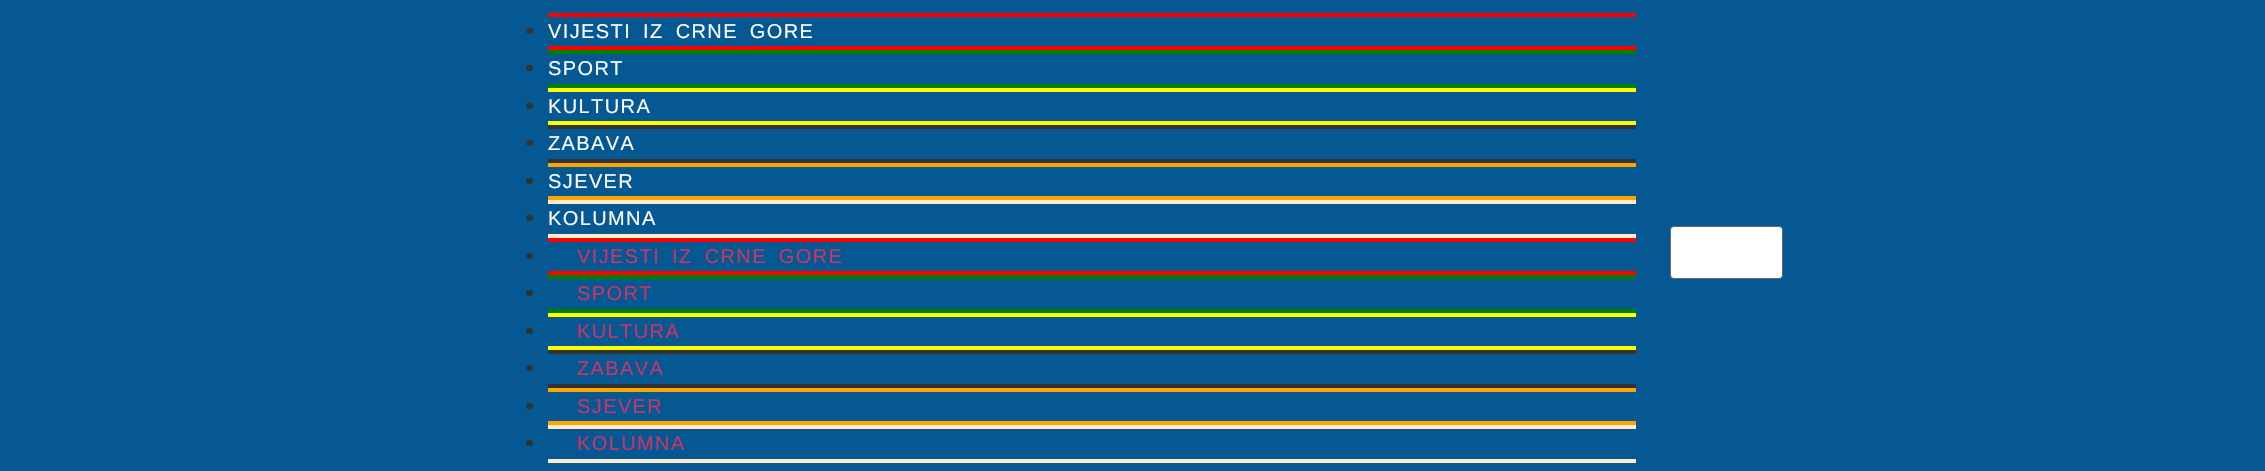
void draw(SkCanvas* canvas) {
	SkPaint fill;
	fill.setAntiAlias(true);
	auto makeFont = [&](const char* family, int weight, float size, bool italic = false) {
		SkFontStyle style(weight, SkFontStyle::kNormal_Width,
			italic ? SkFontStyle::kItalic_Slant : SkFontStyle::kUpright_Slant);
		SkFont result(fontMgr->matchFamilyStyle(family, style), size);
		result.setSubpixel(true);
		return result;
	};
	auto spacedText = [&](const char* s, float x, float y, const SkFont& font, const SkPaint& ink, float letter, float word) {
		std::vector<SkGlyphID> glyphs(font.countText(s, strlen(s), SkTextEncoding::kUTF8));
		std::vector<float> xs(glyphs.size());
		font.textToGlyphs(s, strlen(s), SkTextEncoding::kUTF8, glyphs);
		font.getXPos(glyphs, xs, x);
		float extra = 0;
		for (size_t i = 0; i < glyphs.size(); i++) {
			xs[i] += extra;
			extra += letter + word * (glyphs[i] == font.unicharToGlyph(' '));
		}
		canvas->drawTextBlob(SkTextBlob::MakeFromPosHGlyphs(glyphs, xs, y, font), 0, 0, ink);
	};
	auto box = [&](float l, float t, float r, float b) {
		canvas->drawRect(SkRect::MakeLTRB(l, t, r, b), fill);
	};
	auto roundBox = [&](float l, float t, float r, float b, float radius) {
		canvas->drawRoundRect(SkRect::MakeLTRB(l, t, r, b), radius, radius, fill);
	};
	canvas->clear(0xFF055891);
	fill.setColor(0xFFFF0000);
	box(548, 13, 1636, 17);
	box(548, 46, 1636, 50);
	fill.setColor(0xFF333333);
	roundBox(526, 28, 533, 34, 3);
	fill.setColor(0xFF008000);
	box(548, 50, 1636, 54);
	box(548, 84, 1636, 88);
	fill.setColor(0xFF333333);
	roundBox(526, 65, 533, 71, 3);
	fill.setColor(0xFFFFFF00);
	box(548, 88, 1636, 92);
	box(548, 121, 1636, 125);
	fill.setColor(0xFF333333);
	roundBox(526, 103, 533, 109, 3);
	box(548, 125, 1636, 129);
	box(548, 159, 1636, 163);
	roundBox(526, 140, 533, 146, 3);
	fill.setColor(0xFFFFA500);
	box(548, 163, 1636, 167);
	box(548, 196, 1636, 200);
	fill.setColor(0xFF333333);
	roundBox(526, 178, 533, 184, 3);
	fill.setColor(0xFFFFEBCD);
	box(548, 200, 1636, 204);
	box(548, 234, 1636, 238);
	fill.setColor(0xFF333333);
	roundBox(526, 215, 533, 221, 3);
	fill.setColor(0xFFFF0000);
	box(548, 238, 1636, 242);
	box(548, 271, 1636, 275);
	fill.setColor(0xFF333333);
	roundBox(526, 253, 533, 259, 3);
	fill.setColor(0xFF008000);
	box(548, 275, 1636, 279);
	box(548, 309, 1636, 313);
	fill.setColor(0xFF333333);
	roundBox(526, 290, 533, 296, 3);
	fill.setColor(0xFFFFFF00);
	box(548, 313, 1636, 317);
	box(548, 346, 1636, 350);
	fill.setColor(0xFF333333);
	roundBox(526, 328, 533, 334, 3);
	box(548, 350, 1636, 354);
	box(548, 384, 1636, 388);
	roundBox(526, 365, 533, 371, 3);
	fill.setColor(0xFFFFA500);
	box(548, 388, 1636, 392);
	box(548, 421, 1636, 425);
	fill.setColor(0xFF333333);
	roundBox(526, 403, 533, 409, 3);
	fill.setColor(0xFFFFEBCD);
	box(548, 425, 1636, 429);
	box(548, 459, 1636, 463);
	fill.setColor(0xFF333333);
	roundBox(526, 440, 533, 446, 3);
	fill.setColor(0xFFFFFFFF);
	canvas->drawRoundRect(SkRect::MakeLTRB(1670.5f, 226.5f, 1782.5f, 278.5f), 3.5f, 3.5f, fill);
	fill.setStyle(SkPaint::kStroke_Style);
	fill.setStrokeWidth(1);
	fill.setColor(0xFF666666);
	canvas->drawRoundRect(SkRect::MakeLTRB(1670.5f, 226.5f, 1782.5f, 278.5f), 3.5f, 3.5f, fill);
	auto font1 = makeFont("Liberation Sans", 400, 20);
	fill.setStyle(SkPaint::kFill_Style);
	fill.setColor(0xFFFFFFFF);
	spacedText("VIJESTI IZ CRNE GORE", 548, 38, font1, fill, 1.4f, 5);
	spacedText("SPORT", 548, 75, font1, fill, 1.4f, 0);
	spacedText("KULTURA", 548, 113, font1, fill, 1.4f, 0);
	spacedText("ZABAVA", 548, 150, font1, fill, 1.4f, 0);
	spacedText("SJEVER", 548, 188, font1, fill, 1.4f, 0);
	spacedText("KOLUMNA", 548, 225, font1, fill, 1.4f, 0);
	fill.setColor(0xFFCC3366);
	spacedText("VIJESTI IZ CRNE GORE", 577, 263, font1, fill, 1.4f, 5);
	spacedText("SPORT", 577, 300, font1, fill, 1.4f, 0);
	spacedText("KULTURA", 577, 338, font1, fill, 1.4f, 0);
	spacedText("ZABAVA", 577, 375, font1, fill, 1.4f, 0);
	spacedText("SJEVER", 577, 413, font1, fill, 1.4f, 0);
	spacedText("KOLUMNA", 577, 450, font1, fill, 1.4f, 0);
}
